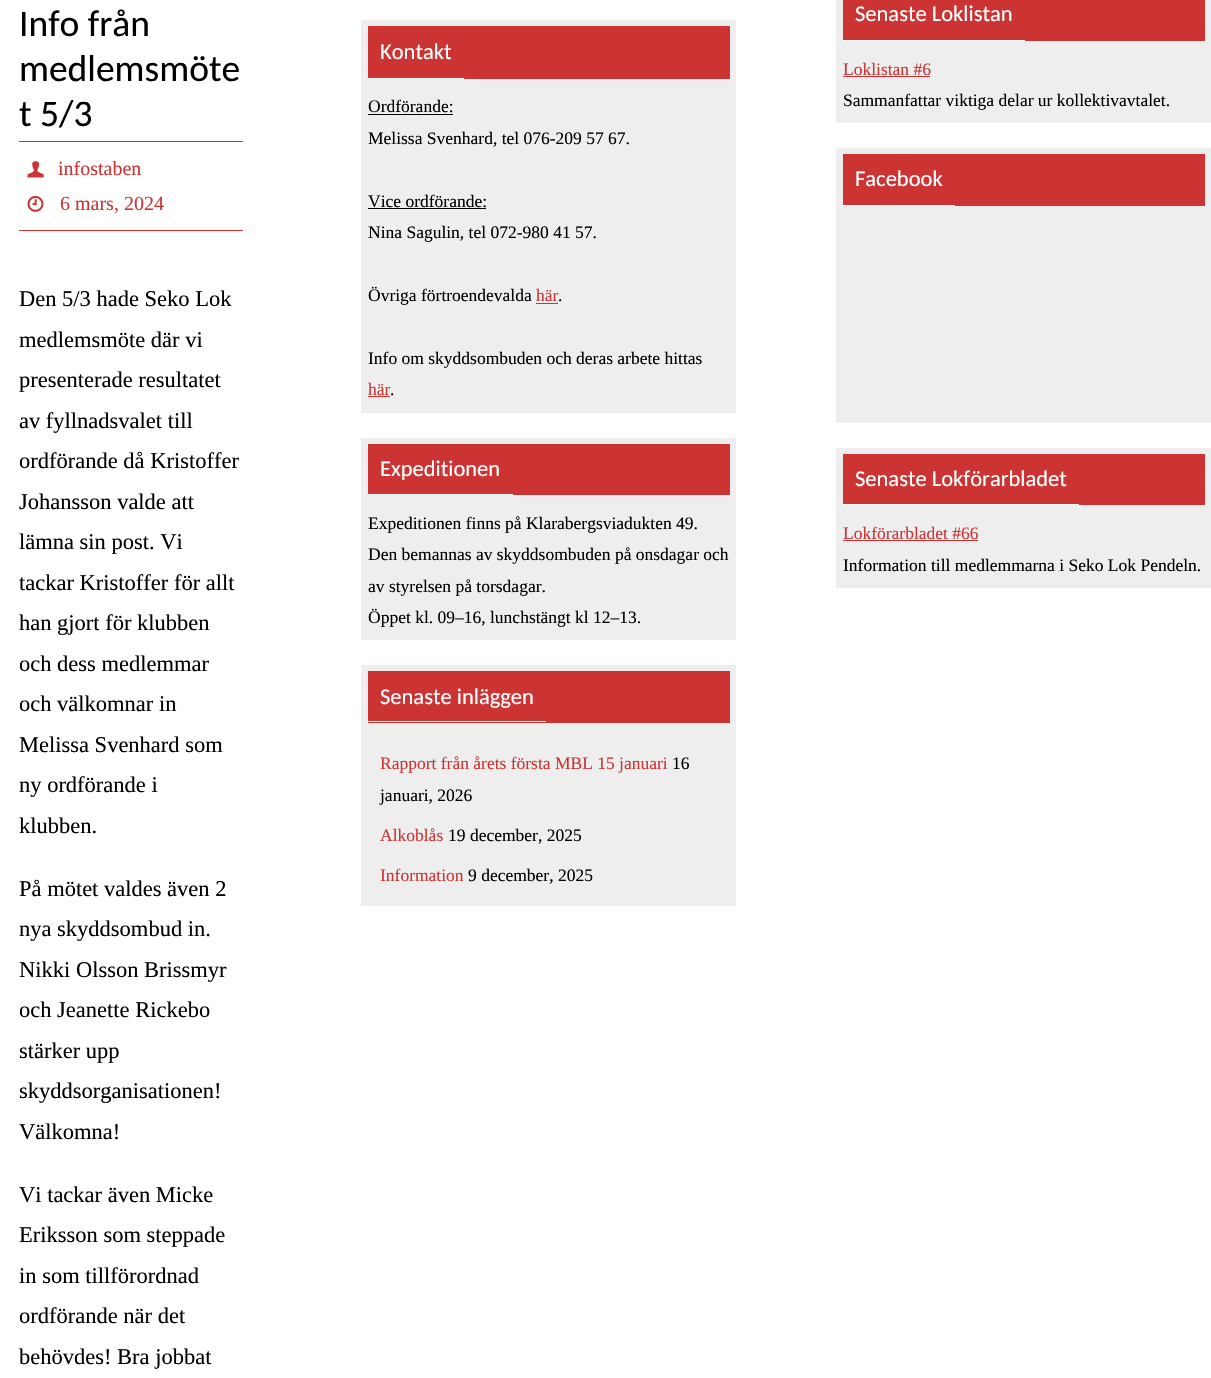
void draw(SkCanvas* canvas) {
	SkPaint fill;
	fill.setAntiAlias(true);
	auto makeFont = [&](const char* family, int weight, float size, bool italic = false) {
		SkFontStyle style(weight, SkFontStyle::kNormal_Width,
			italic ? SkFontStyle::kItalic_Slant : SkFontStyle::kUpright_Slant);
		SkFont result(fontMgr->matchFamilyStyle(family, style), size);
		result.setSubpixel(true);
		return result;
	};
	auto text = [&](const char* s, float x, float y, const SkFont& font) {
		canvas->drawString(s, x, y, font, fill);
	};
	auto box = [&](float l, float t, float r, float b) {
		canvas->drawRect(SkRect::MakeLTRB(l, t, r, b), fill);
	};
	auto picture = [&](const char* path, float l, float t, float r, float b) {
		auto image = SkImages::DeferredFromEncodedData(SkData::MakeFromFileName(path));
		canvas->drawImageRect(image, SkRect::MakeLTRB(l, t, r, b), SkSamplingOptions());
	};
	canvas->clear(0xFFFFFFFF);
	fill.setColor(0xFFCC3333);
	box(19, 141, 243, 142);
	box(19, 230, 243, 231);
	picture("image0.png", 27, 161, 44, 178);
	picture("image1.png", 27, 195, 44, 212);
	fill.setColor(0xFFEEEEEE);
	box(361, 20, 736, 413);
	fill.setColor(0xFFCC3333);
	box(368, 26, 730, 79);
	fill.setColor(0xFFFFFFFF);
	box(368, 78, 464, 79);
	fill.setColor(0xFF000000);
	box(368, 114, 453, 115);
	box(368, 208, 486, 209);
	fill.setColor(0xFFCC3333);
	box(536, 303, 558, 304);
	box(368, 396, 390, 397);
	fill.setColor(0xFFEEEEEE);
	box(361, 438, 736, 640);
	fill.setColor(0xFFCC3333);
	box(368, 444, 730, 495);
	fill.setColor(0xFFFFFFFF);
	box(368, 494, 513, 495);
	fill.setColor(0xFFEEEEEE);
	box(361, 665, 736, 906);
	fill.setColor(0xFFCC3333);
	box(368, 671, 730, 723);
	fill.setColor(0xFFFFFFFF);
	box(368, 721, 546, 722);
	fill.setColor(0xFFEEEEEE);
	box(836, 0, 1211, 123);
	fill.setColor(0xFFCC3333);
	box(843, 0, 1205, 41);
	fill.setColor(0xFFFFFFFF);
	box(843, 40, 1025, 41);
	fill.setColor(0xFFCC3333);
	box(843, 76, 930, 77);
	fill.setColor(0xFFEEEEEE);
	box(836, 148, 1211, 423);
	fill.setColor(0xFFCC3333);
	box(843, 154, 1205, 206);
	fill.setColor(0xFFFFFFFF);
	box(843, 205, 955, 206);
	fill.setColor(0xFFEEEEEE);
	box(836, 448, 1211, 588);
	fill.setColor(0xFFCC3333);
	box(843, 454, 1205, 505);
	fill.setColor(0xFFFFFFFF);
	box(843, 504, 1079, 505);
	fill.setColor(0xFFCC3333);
	box(843, 540, 978, 541);
	auto font1 = makeFont("Carlito", 400, 37.5f);
	fill.setColor(0xFF000000);
	text("Info från", 19, 36, font1);
	text("medlemsmöte", 19, 81, font1);
	text("t 5/3", 19, 126, font1);
	auto font2 = makeFont("Liberation Serif", 400, 20);
	fill.setColor(0xFFCC3333);
	text("infostaben", 58, 175, font2);
	text("6 mars, 2024", 60, 210, font2);
	auto font3 = makeFont("Liberation Serif", 400, 22.5f);
	fill.setColor(0xFF000000);
	text("Den 5/3 hade Seko Lok", 19, 306, font3);
	text("medlemsmöte där vi", 19, 347, font3);
	text("presenterade resultatet", 19, 387, font3);
	text("av fyllnadsvalet till", 19, 428, font3);
	text("ordförande då Kristoffer", 19, 468, font3);
	text("Johansson valde att", 19, 509, font3);
	text("lämna sin post. Vi", 19, 549, font3);
	text("tackar Kristoffer för allt", 19, 590, font3);
	text("han gjort för klubben", 19, 630, font3);
	text("och dess medlemmar", 19, 671, font3);
	text("och välkomnar in", 19, 711, font3);
	text("Melissa Svenhard som", 19, 752, font3);
	text("ny ordförande i", 19, 792, font3);
	text("klubben.", 19, 833, font3);
	text("På mötet valdes även 2", 19, 896, font3);
	text("nya skyddsombud in.", 19, 936, font3);
	text("Nikki Olsson Brissmyr", 19, 977, font3);
	text("och Jeanette Rickebo", 19, 1017, font3);
	text("stärker upp", 19, 1058, font3);
	text("skyddsorganisationen!", 19, 1098, font3);
	text("Välkomna!", 19, 1139, font3);
	text("Vi tackar även Micke", 19, 1202, font3);
	text("Eriksson som steppade", 19, 1242, font3);
	text("in som tillförordnad", 19, 1283, font3);
	text("ordförande när det", 19, 1323, font3);
	text("behövdes! Bra jobbat", 19, 1364, font3);
	auto font4 = makeFont("Carlito", 400, 22.5f);
	fill.setColor(0xFFFFFFFF);
	text("Kontakt", 380, 59, font4);
	auto font5 = makeFont("Liberation Serif", 400, 17.5f);
	fill.setColor(0xFF000000);
	text("Ordförande:", 368, 112, font5);
	text("Melissa Svenhard, tel 076-209 57 67.", 368, 144, font5);
	text("Vice ordförande:", 368, 207, font5);
	text("Nina Sagulin, tel 072-980 41 57.", 368, 238, font5);
	text("Övriga förtroendevalda", 368, 301, font5);
	fill.setColor(0xFFCC3333);
	text("här", 536, 301, font5);
	fill.setColor(0xFF000000);
	text(".", 558, 301, font5);
	text("Info om skyddsombuden och deras arbete hittas", 368, 364, font5);
	fill.setColor(0xFFCC3333);
	text("här", 368, 395, font5);
	fill.setColor(0xFF000000);
	text(".", 390, 395, font5);
	fill.setColor(0xFFFFFFFF);
	text("Expeditionen", 380, 476, font4);
	fill.setColor(0xFF000000);
	text("Expeditionen finns på Klarabergsviadukten 49.", 368, 529, font5);
	text("Den bemannas av skyddsombuden på onsdagar och", 368, 560, font5);
	text("av styrelsen på torsdagar.", 368, 592, font5);
	text("Öppet kl. 09–16, lunchstängt kl 12–13.", 368, 623, font5);
	fill.setColor(0xFFFFFFFF);
	text("Senaste inläggen", 380, 704, font4);
	fill.setColor(0xFFCC3333);
	text("Rapport från årets första MBL 15 januari", 380, 769, font5);
	fill.setColor(0xFF000000);
	text("16", 672, 769, font5);
	text("januari, 2026", 380, 801, font5);
	fill.setColor(0xFFCC3333);
	text("Alkoblås", 380, 841, font5);
	fill.setColor(0xFF000000);
	text("19 december, 2025", 448, 841, font5);
	fill.setColor(0xFFCC3333);
	text("Information", 380, 881, font5);
	fill.setColor(0xFF000000);
	text("9 december, 2025", 468, 881, font5);
	fill.setColor(0xFFFFFFFF);
	text("Senaste Loklistan", 855, 21, font4);
	fill.setColor(0xFFCC3333);
	text("Loklistan #6", 843, 75, font5);
	fill.setColor(0xFF000000);
	text("Sammanfattar viktiga delar ur kollektivavtalet.", 843, 106, font5);
	fill.setColor(0xFFFFFFFF);
	text("Facebook", 855, 186, font4);
	text("Senaste Lokförarbladet", 855, 486, font4);
	fill.setColor(0xFFCC3333);
	text("Lokförarbladet #66", 843, 539, font5);
	fill.setColor(0xFF000000);
	text("Information till medlemmarna i Seko Lok Pendeln.", 843, 571, font5);
}
